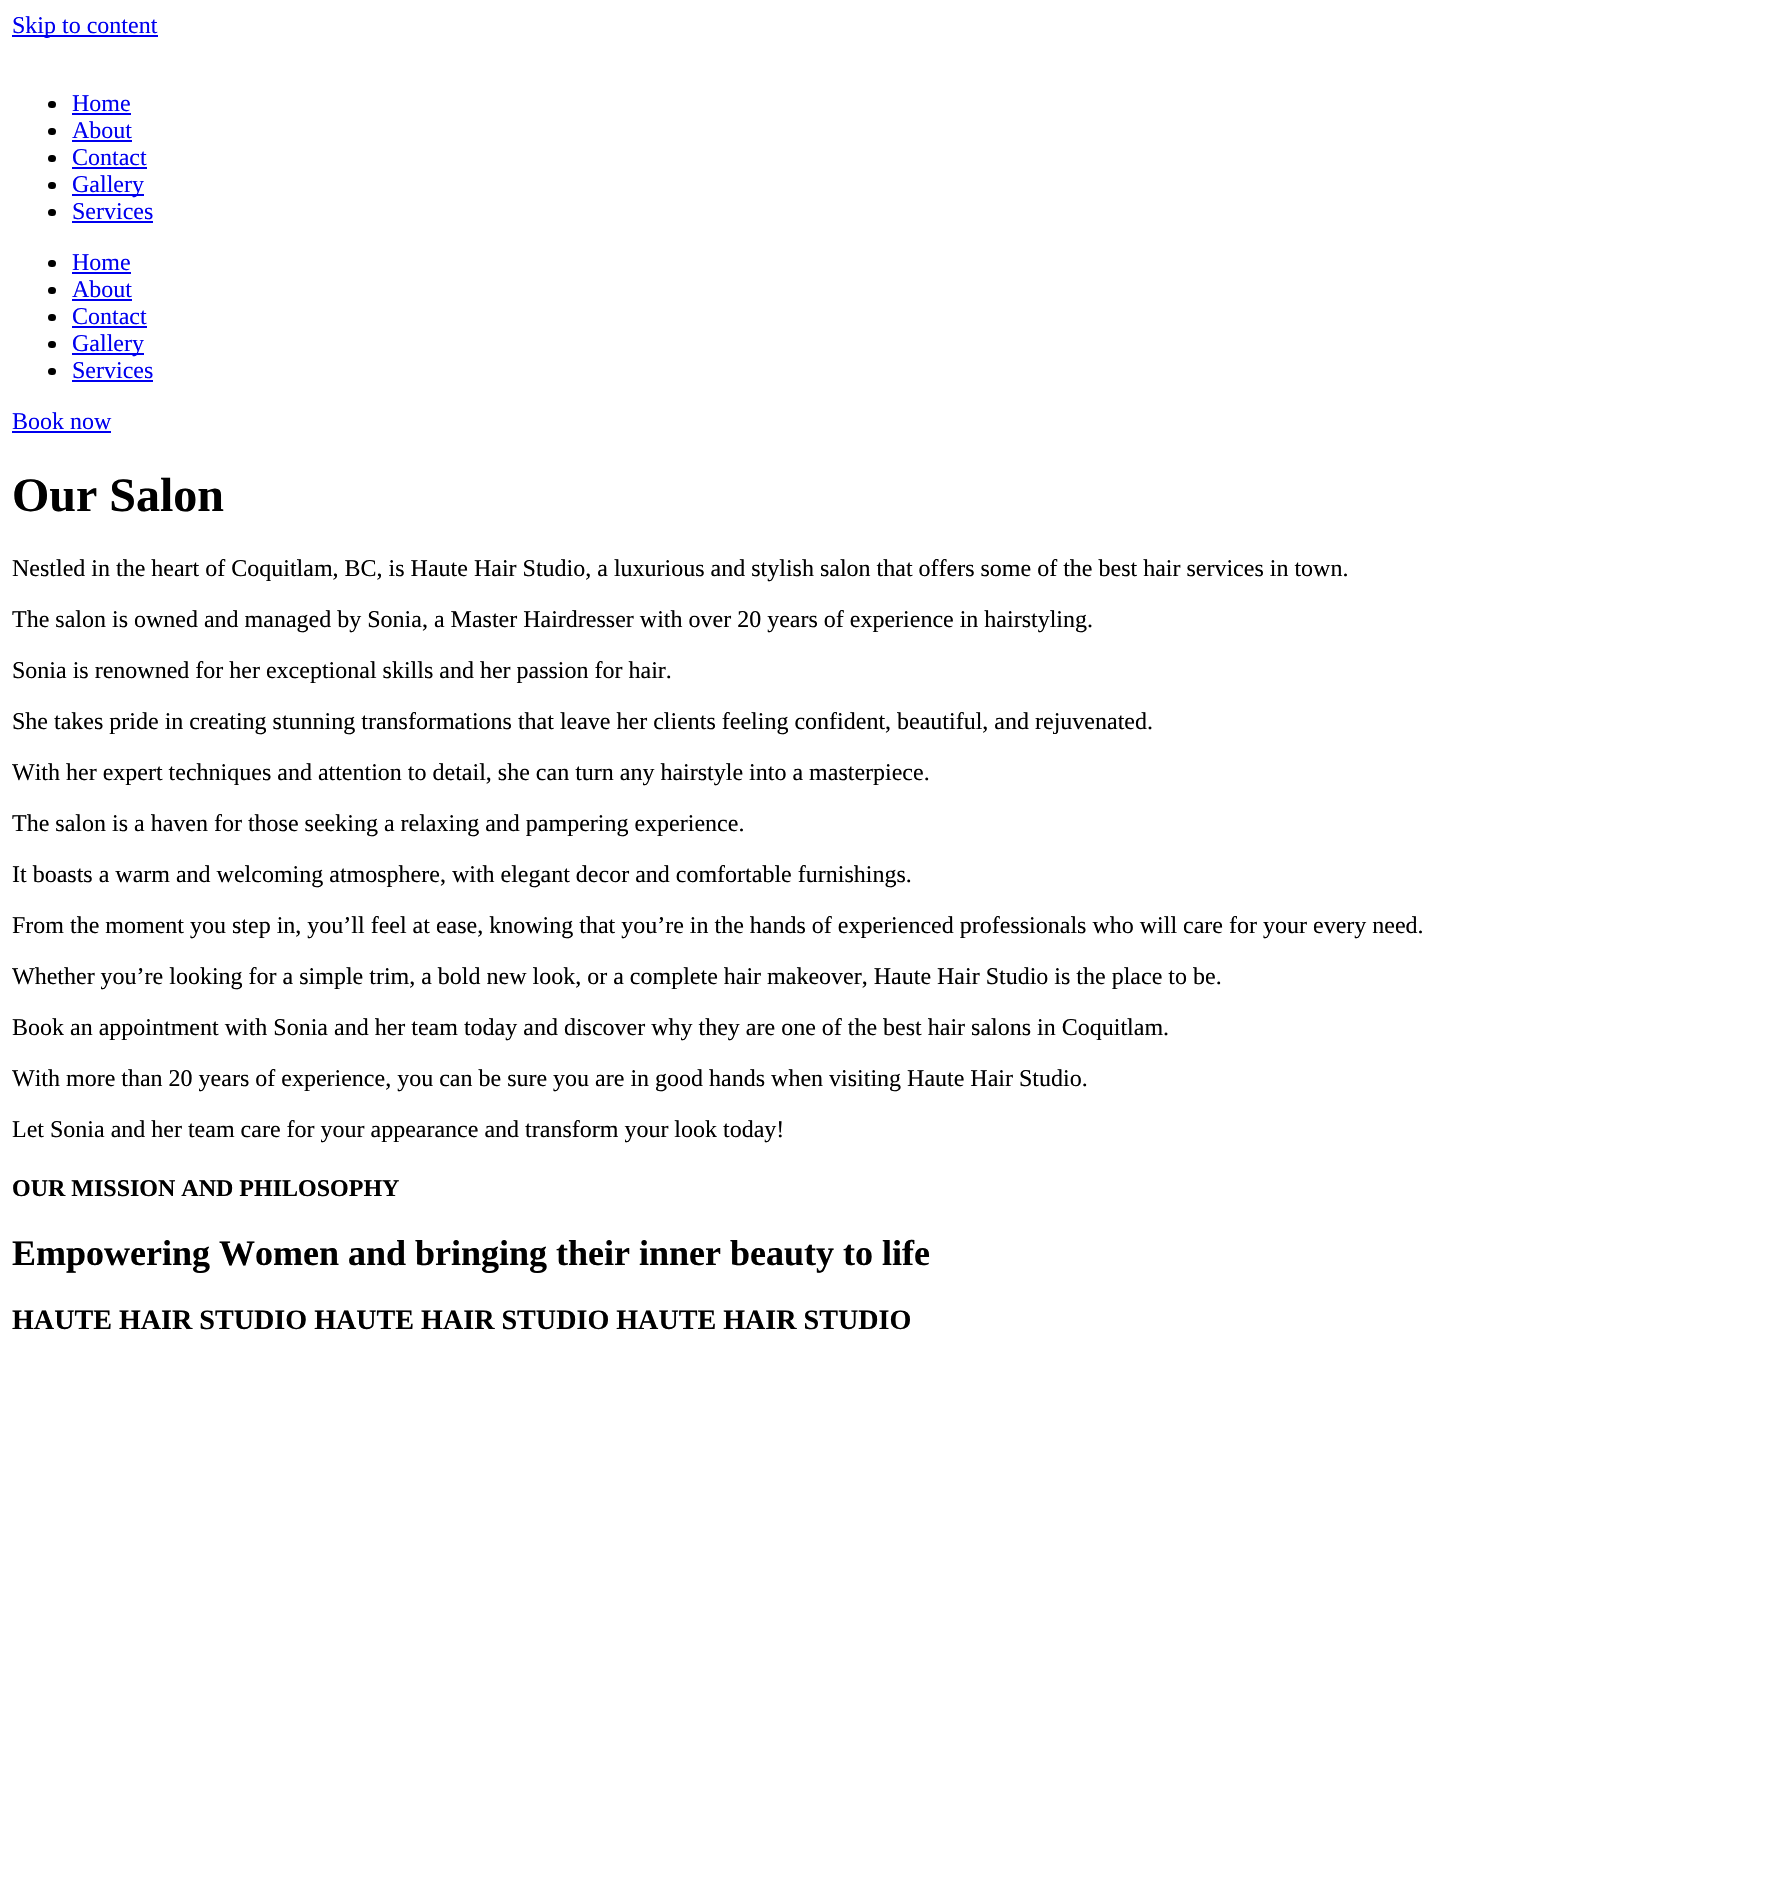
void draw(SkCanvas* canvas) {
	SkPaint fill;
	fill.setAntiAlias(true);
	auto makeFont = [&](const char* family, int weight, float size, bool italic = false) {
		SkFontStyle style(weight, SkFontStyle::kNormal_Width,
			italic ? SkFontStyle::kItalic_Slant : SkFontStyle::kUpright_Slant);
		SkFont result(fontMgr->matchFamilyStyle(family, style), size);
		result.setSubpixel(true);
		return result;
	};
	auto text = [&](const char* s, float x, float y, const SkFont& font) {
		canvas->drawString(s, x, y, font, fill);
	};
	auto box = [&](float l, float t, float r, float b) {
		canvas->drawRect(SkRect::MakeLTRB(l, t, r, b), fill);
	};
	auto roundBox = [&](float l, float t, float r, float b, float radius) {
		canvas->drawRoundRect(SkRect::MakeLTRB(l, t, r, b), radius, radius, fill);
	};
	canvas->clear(0xFFFFFFFF);
	fill.setColor(0xFF0000EE);
	box(12, 35, 158, 37);
	fill.setColor(0xFF000000);
	roundBox(48, 101, 56, 108, 3.5f);
	fill.setColor(0xFF0000EE);
	box(72, 113, 131, 115);
	fill.setColor(0xFF000000);
	roundBox(48, 128, 56, 135, 3.5f);
	fill.setColor(0xFF0000EE);
	box(72, 140, 132, 142);
	fill.setColor(0xFF000000);
	roundBox(48, 155, 56, 162, 3.5f);
	fill.setColor(0xFF0000EE);
	box(72, 167, 147, 169);
	fill.setColor(0xFF000000);
	roundBox(48, 182, 56, 189, 3.5f);
	fill.setColor(0xFF0000EE);
	box(72, 194, 144, 196);
	fill.setColor(0xFF000000);
	roundBox(48, 209, 56, 216, 3.5f);
	fill.setColor(0xFF0000EE);
	box(72, 221, 153, 223);
	fill.setColor(0xFF000000);
	roundBox(48, 260, 56, 267, 3.5f);
	fill.setColor(0xFF0000EE);
	box(72, 272, 131, 274);
	fill.setColor(0xFF000000);
	roundBox(48, 287, 56, 294, 3.5f);
	fill.setColor(0xFF0000EE);
	box(72, 299, 132, 301);
	fill.setColor(0xFF000000);
	roundBox(48, 314, 56, 321, 3.5f);
	fill.setColor(0xFF0000EE);
	box(72, 326, 147, 328);
	fill.setColor(0xFF000000);
	roundBox(48, 341, 56, 348, 3.5f);
	fill.setColor(0xFF0000EE);
	box(72, 353, 144, 355);
	fill.setColor(0xFF000000);
	roundBox(48, 368, 56, 375, 3.5f);
	fill.setColor(0xFF0000EE);
	box(72, 380, 153, 382);
	box(12, 431, 111, 433);
	auto font1 = makeFont("Liberation Serif", 400, 24);
	text("Skip to content", 12, 33, font1);
	text("Home", 72, 111, font1);
	text("About", 72, 138, font1);
	text("Contact", 72, 165, font1);
	text("Gallery", 72, 192, font1);
	text("Services", 72, 219, font1);
	text("Home", 72, 270, font1);
	text("About", 72, 297, font1);
	text("Contact", 72, 324, font1);
	text("Gallery", 72, 351, font1);
	text("Services", 72, 378, font1);
	text("Book now", 12, 429, font1);
	auto font2 = makeFont("Liberation Serif", 700, 48);
	fill.setColor(0xFF000000);
	text("Our Salon", 12, 511, font2);
	text("Nestled in the heart of Coquitlam, BC, is Haute Hair Studio, a luxurious and stylish salon that offers some of the best hair services in town.", 12, 576, font1);
	text("The salon is owned and managed by Sonia, a Master Hairdresser with over 20 years of experience in hairstyling.", 12, 627, font1);
	text("Sonia is renowned for her exceptional skills and her passion for hair.", 12, 678, font1);
	text("She takes pride in creating stunning transformations that leave her clients feeling confident, beautiful, and rejuvenated.", 12, 729, font1);
	text("With her expert techniques and attention to detail, she can turn any hairstyle into a masterpiece.", 12, 780, font1);
	text("The salon is a haven for those seeking a relaxing and pampering experience.", 12, 831, font1);
	text("It boasts a warm and welcoming atmosphere, with elegant decor and comfortable furnishings.", 12, 882, font1);
	text("From the moment you step in, you’ll feel at ease, knowing that you’re in the hands of experienced professionals who will care for your every need.", 12, 933, font1);
	text("Whether you’re looking for a simple trim, a bold new look, or a complete hair makeover, Haute Hair Studio is the place to be.", 12, 984, font1);
	text("Book an appointment with Sonia and her team today and discover why they are one of the best hair salons in Coquitlam.", 12, 1035, font1);
	text("With more than 20 years of experience, you can be sure you are in good hands when visiting Haute Hair Studio.", 12, 1086, font1);
	text("Let Sonia and her team care for your appearance and transform your look today!", 12, 1137, font1);
	auto font3 = makeFont("Liberation Serif", 700, 24);
	text("OUR MISSION AND PHILOSOPHY", 12, 1196, font3);
	auto font4 = makeFont("Liberation Serif", 700, 36);
	text("Empowering Women and bringing their inner beauty to life", 12, 1265, font4);
	auto font5 = makeFont("Liberation Serif", 700, 28.1f);
	text("HAUTE HAIR STUDIO HAUTE HAIR STUDIO HAUTE HAIR STUDIO", 12, 1329, font5);
}
